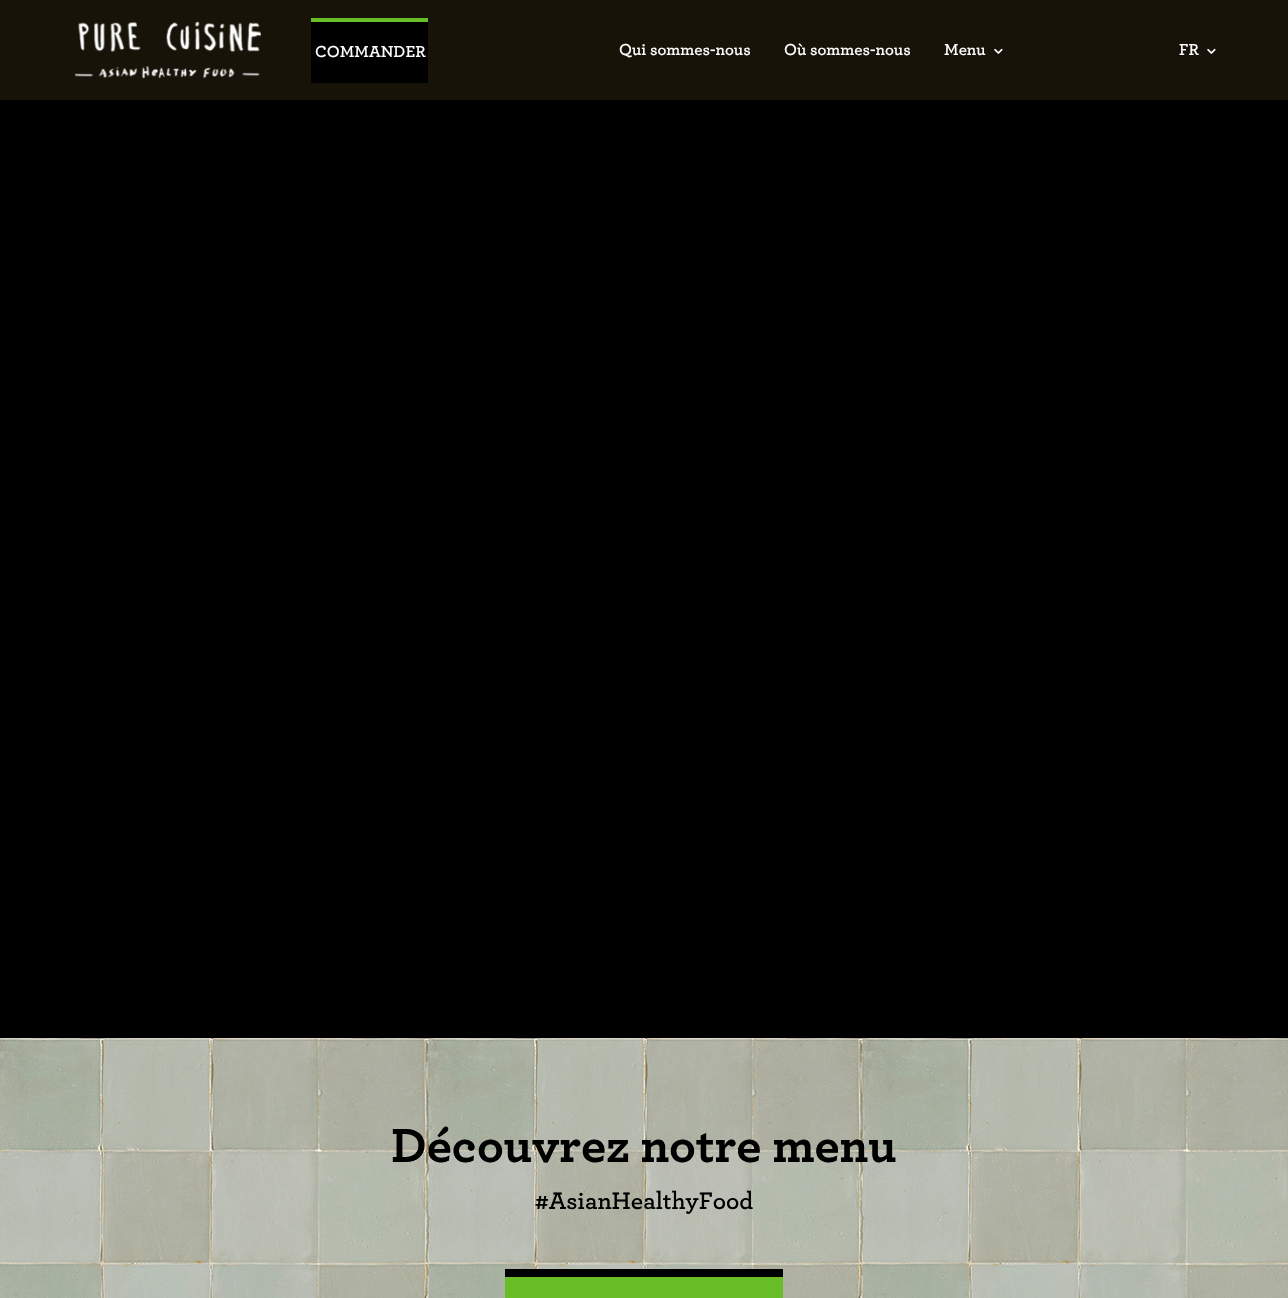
void draw(SkCanvas* canvas) {
	SkPaint fill;
	fill.setAntiAlias(true);
	auto makeFont = [&](const char* family, int weight, float size, bool italic = false) {
		SkFontStyle style(weight, SkFontStyle::kNormal_Width,
			italic ? SkFontStyle::kItalic_Slant : SkFontStyle::kUpright_Slant);
		SkFont result(fontMgr->matchFamilyStyle(family, style), size);
		result.setSubpixel(true);
		return result;
	};
	auto text = [&](const char* s, float x, float y, const SkFont& font) {
		canvas->drawString(s, x, y, font, fill);
	};
	auto box = [&](float l, float t, float r, float b) {
		canvas->drawRect(SkRect::MakeLTRB(l, t, r, b), fill);
	};
	auto picture = [&](const char* path, float l, float t, float r, float b) {
		auto image = SkImages::DeferredFromEncodedData(SkData::MakeFromFileName(path));
		canvas->drawImageRect(image, SkRect::MakeLTRB(l, t, r, b), SkSamplingOptions());
	};
	canvas->clear(0xFF000000);
	fill.setColor(0xFF181309);
	box(0, 0, 1288, 100);
	picture("image0.png", 74, 21, 261, 79);
	fill.setColor(0xFF000000);
	box(311, 22, 428, 83);
	fill.setColor(0xFF69BE28);
	box(311, 18, 428, 22);
	picture("image1.png", 994, 48, 1003, 54);
	picture("image1.png", 1207, 48, 1216, 54);
	picture("image2.png", 0, 1038, 1288, 1298);
	box(505, 1277, 783, 1298);
	fill.setColor(0xFF000000);
	box(505, 1269, 783, 1277);
	auto font1 = makeFont("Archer", 600, 16.75f);
	fill.setColor(0xFFFFFFFF);
	text("COMMANDER", 315, 57, font1);
	text("Qui sommes-nous", 619, 55, font1);
	text("Où sommes-nous", 784, 55, font1);
	text("Menu", 944, 55, font1);
	text("FR", 1179, 55, font1);
	auto font2 = makeFont("Archer", 700, 50.25f);
	fill.setColor(0xFF000000);
	text("Découvrez notre menu", 391, 1162, font2);
	auto font3 = makeFont("Archer", 600, 25.1f);
	text("#AsianHealthyFood", 535, 1209, font3);
}
